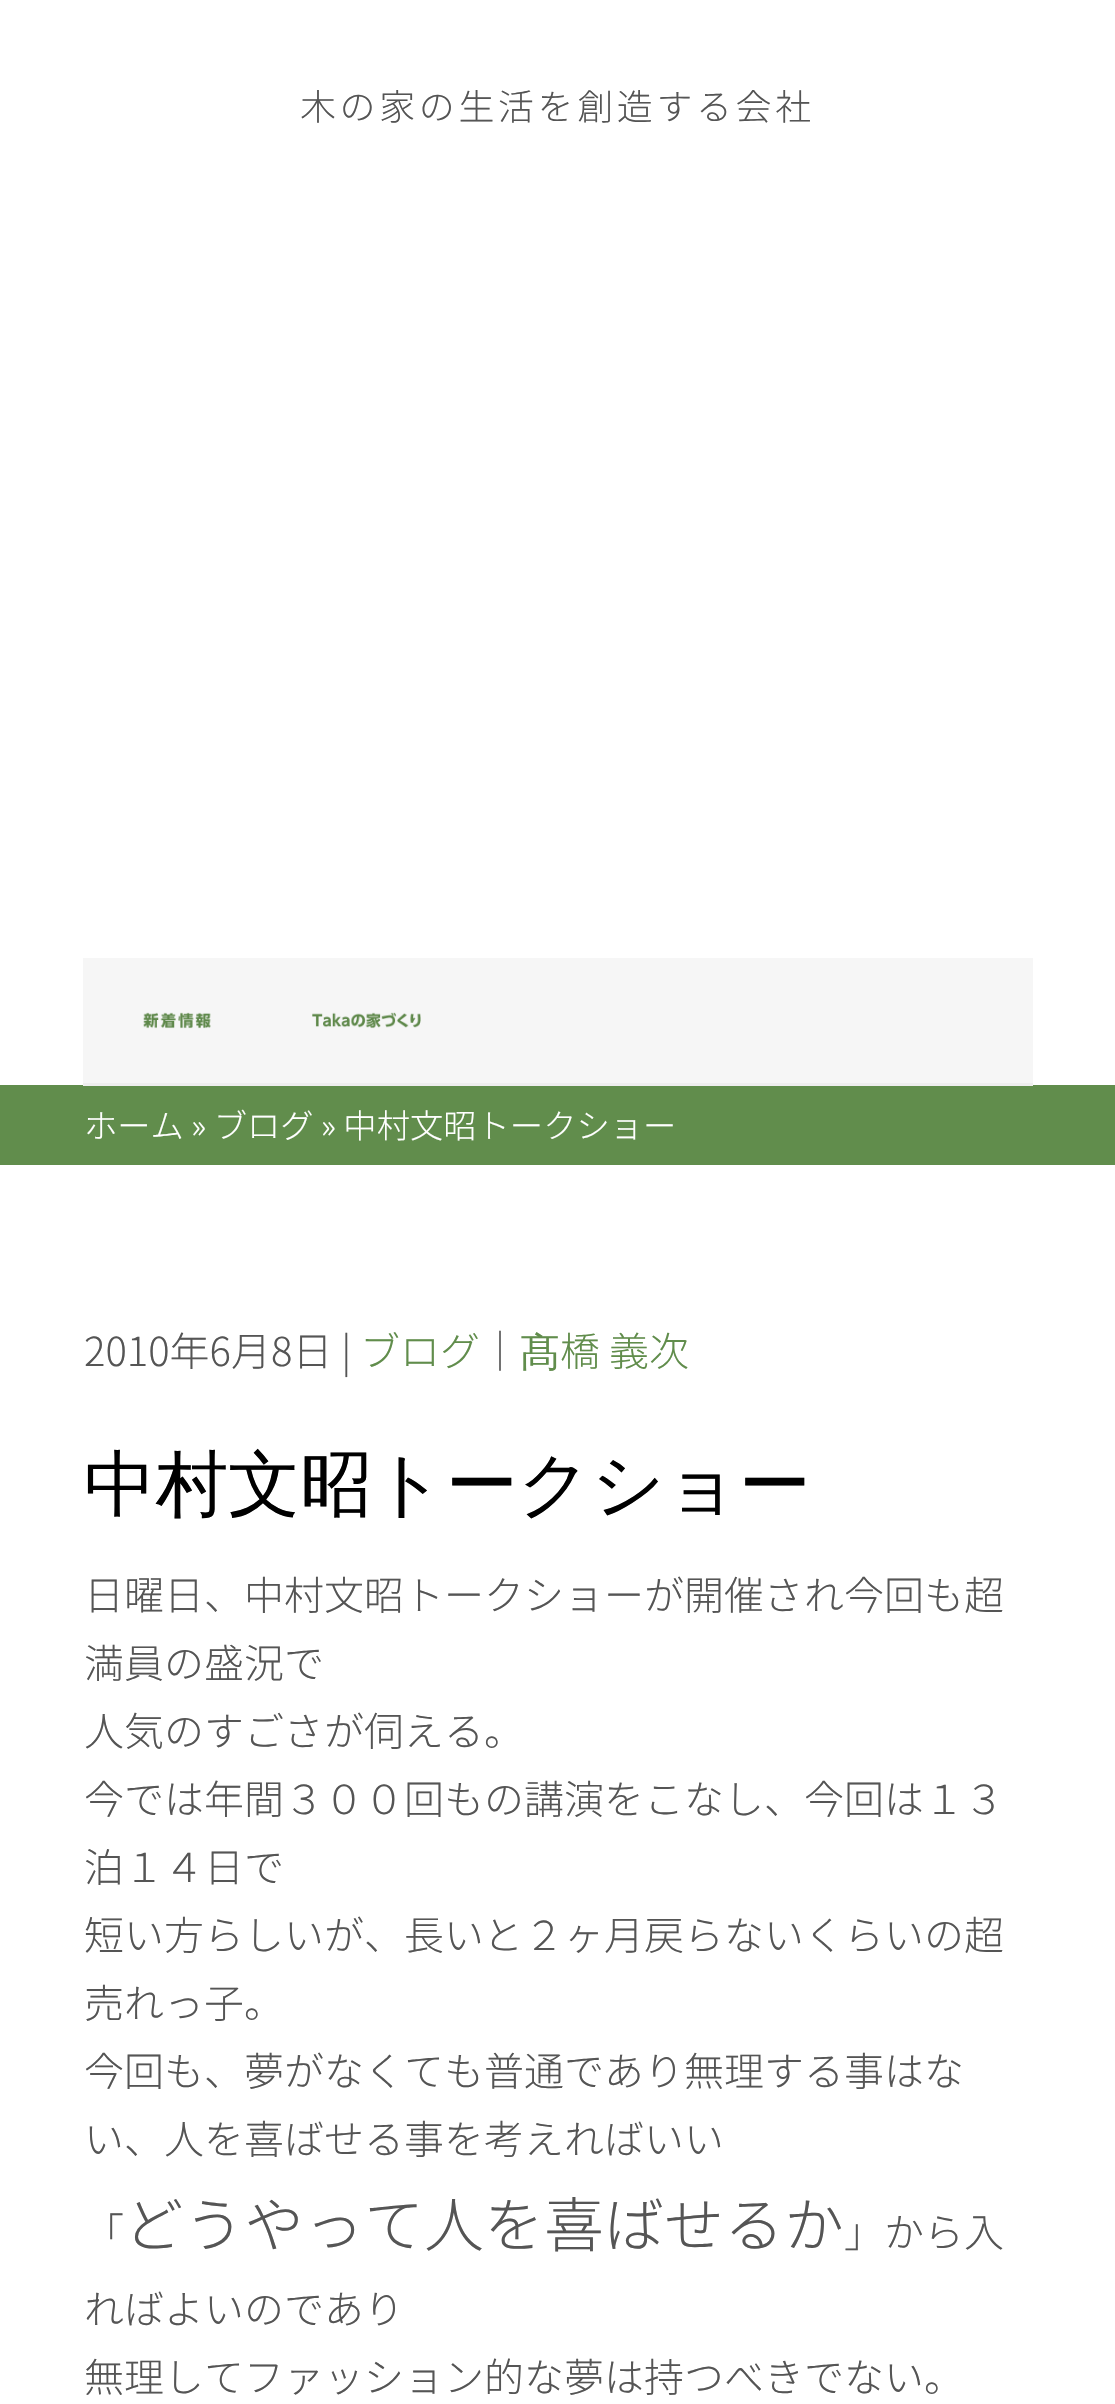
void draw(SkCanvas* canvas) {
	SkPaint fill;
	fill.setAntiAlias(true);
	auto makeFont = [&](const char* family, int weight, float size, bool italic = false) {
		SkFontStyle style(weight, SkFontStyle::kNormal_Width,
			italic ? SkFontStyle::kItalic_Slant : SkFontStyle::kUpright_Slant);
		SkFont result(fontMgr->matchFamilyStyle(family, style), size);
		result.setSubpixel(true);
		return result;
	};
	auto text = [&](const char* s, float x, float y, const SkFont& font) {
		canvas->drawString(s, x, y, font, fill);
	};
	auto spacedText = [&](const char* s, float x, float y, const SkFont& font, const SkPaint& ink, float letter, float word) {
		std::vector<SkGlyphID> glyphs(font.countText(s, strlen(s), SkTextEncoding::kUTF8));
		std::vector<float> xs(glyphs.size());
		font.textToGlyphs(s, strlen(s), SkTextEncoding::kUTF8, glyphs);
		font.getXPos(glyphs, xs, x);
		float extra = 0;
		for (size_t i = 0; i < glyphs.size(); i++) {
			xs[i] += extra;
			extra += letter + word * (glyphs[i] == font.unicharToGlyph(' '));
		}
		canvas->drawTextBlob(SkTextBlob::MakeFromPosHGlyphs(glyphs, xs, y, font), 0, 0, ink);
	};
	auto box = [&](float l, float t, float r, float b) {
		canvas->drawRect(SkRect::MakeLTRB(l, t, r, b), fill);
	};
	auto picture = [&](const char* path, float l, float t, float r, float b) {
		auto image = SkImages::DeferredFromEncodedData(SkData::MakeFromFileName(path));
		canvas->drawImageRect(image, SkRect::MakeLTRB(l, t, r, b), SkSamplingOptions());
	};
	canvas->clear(0xFFFFFFFF);
	fill.setColor(0xFF618D4C);
	box(0, 1085, 1115, 1165);
	fill.setColor(0xFFEEEEEE);
	box(83, 1083, 1033, 1086);
	fill.setColor(0xFFF6F6F6);
	box(83, 958, 1033, 1083);
	picture("image0.png", 143, 1012, 211, 1029);
	picture("image1.png", 312, 1012, 421, 1029);
	auto font1 = makeFont("Noto Sans JP", 300, 36);
	fill.setColor(0xFF555555);
	spacedText("木の家の生活を創造する会社", 300, 120, font1, fill, 3.6f, 0);
	auto font2 = makeFont("Noto Sans JP", 300, 33.3f);
	fill.setColor(0xFFFFFFFF);
	text("ホーム » ブログ » 中村文昭トークショー", 84, 1138, font2);
	auto font3 = makeFont("Noto Sans JP", 300, 40);
	fill.setColor(0xFF555555);
	text("2010年6月8日 |", 84, 1366, font3);
	fill.setColor(0xFF618D4C);
	text("ブログ", 360, 1366, font3);
	fill.setColor(0xFF555555);
	text("｜", 480, 1366, font3);
	auto font4 = makeFont("WenQuanYi Zen Hei", 500, 40);
	fill.setColor(0xFF618D4C);
	text("髙", 520, 1366, font4);
	text("橋 義次", 560, 1366, font3);
	auto font5 = makeFont("WenQuanYi Zen Hei", 500, 72);
	fill.setColor(0xFF000000);
	text("中村文昭トークショー", 84, 1509, font5);
	fill.setColor(0xFF555555);
	text("日曜日、中村文昭トークショーが開催され今回も超", 84, 1610, font3);
	text("満員の盛況で", 84, 1678, font3);
	text("人気のすごさが伺える。", 84, 1746, font3);
	text("今では年間３００回もの講演をこなし、今回は１３", 84, 1814, font3);
	text("泊１４日で", 84, 1882, font3);
	text("短い方らしいが、長いと２ヶ月戻らないくらいの超", 84, 1950, font3);
	text("売れっ子。", 84, 2018, font3);
	text("今回も、夢がなくても普通であり無理する事はな", 84, 2086, font3);
	text("い、人を喜ばせる事を考えればいい", 84, 2154, font3);
	text("「", 84, 2247, font3);
	auto font6 = makeFont("Noto Sans JP", 300, 60);
	text("どうやって人を喜ばせるか", 124, 2247, font6);
	text("」から入", 844, 2247, font3);
	text("ればよいのであり", 84, 2324, font3);
	text("無理してファッション的な夢は持つべきでない。", 84, 2392, font3);
}
